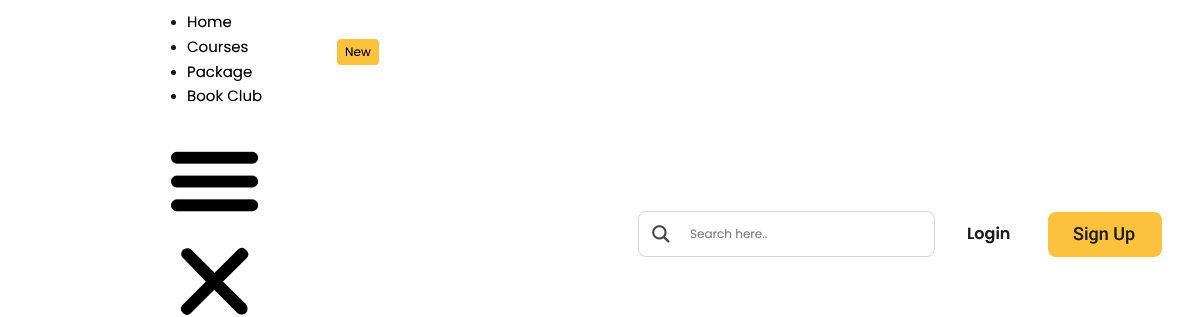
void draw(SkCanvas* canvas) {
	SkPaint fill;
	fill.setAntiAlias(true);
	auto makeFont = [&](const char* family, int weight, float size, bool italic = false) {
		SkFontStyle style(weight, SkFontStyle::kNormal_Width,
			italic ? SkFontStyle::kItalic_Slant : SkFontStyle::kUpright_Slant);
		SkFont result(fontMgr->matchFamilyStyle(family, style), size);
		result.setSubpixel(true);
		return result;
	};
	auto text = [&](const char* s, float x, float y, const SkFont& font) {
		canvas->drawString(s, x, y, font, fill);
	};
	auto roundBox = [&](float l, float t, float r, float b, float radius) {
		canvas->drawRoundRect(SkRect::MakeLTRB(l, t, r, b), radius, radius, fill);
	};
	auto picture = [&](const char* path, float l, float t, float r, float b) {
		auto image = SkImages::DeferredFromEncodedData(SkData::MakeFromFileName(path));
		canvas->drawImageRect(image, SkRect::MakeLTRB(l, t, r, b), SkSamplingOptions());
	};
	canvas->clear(0xFFFFFFFF);
	fill.setColor(0xFF161616);
	canvas->drawCircle(173.5f, 22.5f, 2.5f, fill);
	canvas->drawCircle(173.5f, 47.5f, 2.5f, fill);
	canvas->drawCircle(173.5f, 96.5f, 2.5f, fill);
	fill.setColor(0xFFFCC23E);
	roundBox(337, 39, 379, 65, 4);
	fill.setColor(0xFF161616);
	canvas->drawCircle(173.5f, 72.5f, 2.5f, fill);
	picture("image0.png", 171, 151, 259, 212);
	picture("image1.png", 180, 247, 249, 315);
	fill.setStyle(SkPaint::kStroke_Style);
	fill.setStrokeWidth(1);
	fill.setColor(0xFFD6D6D6);
	canvas->drawRoundRect(SkRect::MakeLTRB(638.5f, 211.5f, 934.5f, 256.5f), 7.5f, 7.5f, fill);
	picture("image2.png", 652, 225, 670, 243);
	fill.setStyle(SkPaint::kFill_Style);
	fill.setColor(0xFFFCC23E);
	roundBox(1048, 212, 1162, 257, 8);
	auto font1 = makeFont("Poppins", 400, 15);
	fill.setColor(0xFF000000);
	text("Home", 187, 27, font1);
	text("Courses", 187, 52, font1);
	auto font2 = makeFont("Poppins", 400, 12);
	text("New", 345, 56, font2);
	text("Book Club", 187, 101, font1);
	text("Package", 187, 77, font1);
	fill.setColor(0xFF7D7D7D);
	text("Search here..", 690, 238, font2);
	auto font3 = makeFont("Poppins", 600, 16);
	fill.setColor(0xFF1D1D1F);
	text("Login", 967, 239, font3);
	auto font4 = makeFont("Roboto", 500, 18);
	text("Sign Up", 1073, 240, font4);
}
